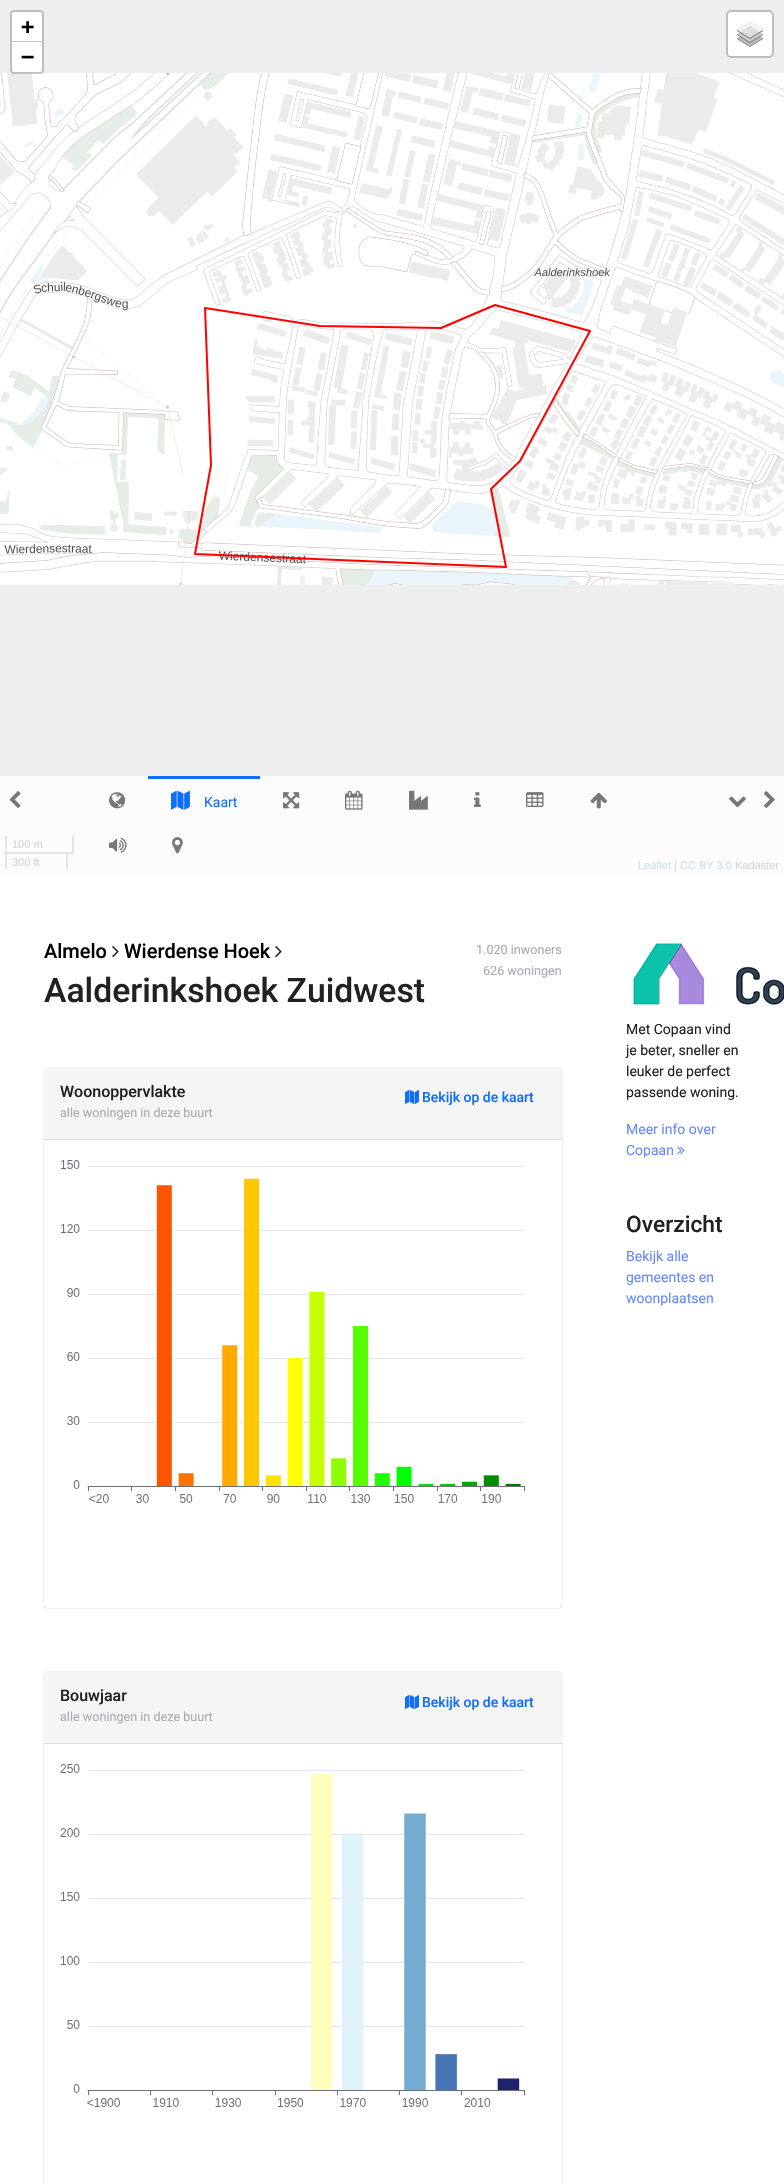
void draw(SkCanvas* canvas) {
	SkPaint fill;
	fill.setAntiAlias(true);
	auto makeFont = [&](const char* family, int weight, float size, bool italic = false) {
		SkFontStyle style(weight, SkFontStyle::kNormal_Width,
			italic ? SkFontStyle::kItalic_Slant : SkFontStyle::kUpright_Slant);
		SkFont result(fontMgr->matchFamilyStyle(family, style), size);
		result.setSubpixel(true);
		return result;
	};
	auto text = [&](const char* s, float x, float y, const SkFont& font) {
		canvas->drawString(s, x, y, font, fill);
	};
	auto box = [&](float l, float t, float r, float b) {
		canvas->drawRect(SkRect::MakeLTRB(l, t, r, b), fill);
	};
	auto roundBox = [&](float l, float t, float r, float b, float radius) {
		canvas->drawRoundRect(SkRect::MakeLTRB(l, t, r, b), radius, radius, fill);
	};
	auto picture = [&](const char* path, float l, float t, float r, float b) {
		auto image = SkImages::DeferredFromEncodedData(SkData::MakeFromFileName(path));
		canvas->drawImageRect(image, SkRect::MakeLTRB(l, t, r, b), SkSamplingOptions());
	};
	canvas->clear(0xFFFFFFFF);
	fill.setColor(0xFFEEEEEE);
	box(0, 0, 784, 776);
	fill.setColor(0xFFFCFCFC);
	box(0, 776, 784, 874);
	picture("image1.png", 0, 73, 162, 329);
	fill.setStyle(SkPaint::kStroke_Style);
	fill.setStrokeWidth(2);
	fill.setColor(0x33000000);
	canvas->drawRoundRect(SkRect::MakeLTRB(11, 11, 43, 73), 3, 3, fill);
	fill.setStyle(SkPaint::kFill_Style);
	fill.setColor(0xFFFFFFFF);
	canvas->drawPath(SkPathBuilder().moveTo(14, 12).lineTo(40, 12).cubicTo(41, 12, 42, 13, 42, 14).lineTo(42, 42).lineTo(12, 42).lineTo(12, 14).cubicTo(12, 13, 13, 12, 14, 12).close().detach(), fill);
	fill.setColor(0xFFCCCCCC);
	box(12, 41, 42, 42);
	fill.setColor(0xFFFFFFFF);
	canvas->drawPath(SkPathBuilder().moveTo(12, 42).lineTo(42, 42).lineTo(42, 70).cubicTo(42, 71, 41, 72, 40, 72).lineTo(14, 72).cubicTo(13, 72, 12, 71, 12, 70).close().detach(), fill);
	canvas->drawRoundRect(SkRect::MakeLTRB(727, 11, 773, 57), 4, 4, fill);
	fill.setStyle(SkPaint::kStroke_Style);
	fill.setColor(0xFFBEBEBE);
	canvas->drawRoundRect(SkRect::MakeLTRB(727, 11, 773, 57), 4, 4, fill);
	picture("image0.png", 737, 22, 763, 47);
	fill.setStyle(SkPaint::kFill_Style);
	fill.setColor(0xFFE4E4E4);
	box(72, 836, 74, 854);
	box(68, 852, 74, 854);
	box(5, 836, 7, 854);
	box(5, 852, 68, 854);
	box(66, 852, 68, 869);
	box(5, 852, 7, 869);
	picture("image2.png", 162, 73, 418, 329);
	picture("image3.png", 418, 73, 674, 329);
	picture("image4.png", 674, 73, 784, 329);
	picture("image5.png", 0, 329, 162, 585);
	picture("image6.png", 162, 329, 418, 585);
	picture("image7.png", 418, 329, 674, 585);
	picture("image8.png", 674, 329, 784, 585);
	fill.setStyle(SkPaint::kStroke_Style);
	fill.setStrokeCap(SkPaint::kRound_Cap);
	fill.setStrokeJoin(SkPaint::kRound_Join);
	fill.setColor(0xFFFF0000);
	canvas->drawPath(SkPathBuilder().moveTo(195, 554).lineTo(506, 567).lineTo(491, 489).lineTo(520, 461).lineTo(590, 331).lineTo(495, 305).lineTo(441, 328).lineTo(320, 326).lineTo(205, 308).lineTo(211, 465).close().detach(), fill);
	picture("image9.png", 9, 791, 21, 808);
	picture("image10.png", 109, 792, 126, 809);
	fill.setStyle(SkPaint::kFill_Style);
	fill.setColor(0xFF0D6EFD);
	box(148, 776, 260, 779);
	picture("image11.png", 171, 790, 190, 810);
	picture("image12.png", 283, 792, 300, 809);
	picture("image13.png", 345, 790, 363, 810);
	picture("image14.png", 409, 790, 428, 810);
	picture("image15.png", 474, 792, 481, 807);
	picture("image16.png", 526, 792, 544, 807);
	picture("image17.png", 590, 792, 607, 809);
	picture("image18.png", 109, 837, 127, 853);
	picture("image19.png", 172, 837, 183, 854);
	picture("image20.png", 729, 796, 746, 808);
	picture("image21.png", 764, 791, 775, 808);
	picture("image22.png", 112, 946, 119, 958);
	picture("image22.png", 275, 946, 282, 958);
	fill.setColor(0x80000000);
	fill.setMaskFilter(SkMaskFilter::MakeBlur(kNormal_SkBlurStyle, 0.5f));
	canvas->drawRoundRect(SkRect::MakeLTRB(44, 1068, 562, 1608), 3, 3, fill);
	fill.setMaskFilter(nullptr);
	fill.setColor(0xFFFFFFFF);
	roundBox(44, 1068, 562, 1608, 3);
	fill.setColor(0xFFF5F5F5);
	box(44, 1068, 562, 1139);
	fill.setColor(0xFFDDDDDD);
	box(44, 1139, 562, 1140);
	picture("image23.png", 405, 1090, 419, 1104);
	picture("image24.png", 60, 1160, 525, 1503);
	fill.setColor(0x80000000);
	fill.setMaskFilter(SkMaskFilter::MakeBlur(kNormal_SkBlurStyle, 0.5f));
	canvas->drawRoundRect(SkRect::MakeLTRB(44, 1672, 562, 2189), 3, 3, fill);
	fill.setMaskFilter(nullptr);
	fill.setColor(0xFFFFFFFF);
	box(44, 1744, 562, 2184);
	fill.setColor(0xFFF5F5F5);
	box(44, 1672, 562, 1743);
	fill.setColor(0xFFDDDDDD);
	box(44, 1743, 562, 1744);
	picture("image23.png", 405, 1695, 419, 1709);
	picture("image25.png", 60, 1764, 525, 2107);
	picture("image26.png", 633, 943, 784, 1005);
	picture("image27.png", 677, 1146, 685, 1155);
	auto font1 = makeFont("DejaVu Sans Mono", 700, 22);
	fill.setColor(0xFF000000);
	text("+", 21, 34, font1);
	text("−", 21, 64, font1);
	auto font2 = makeFont("Liberation Sans", 400, 11);
	fill.setColor(0xFFD6D6D6);
	text("100 m", 12, 848, font2);
	text("300 ft", 12, 866, font2);
	fill.setColor(0xFFCCE4EE);
	text("Leaflet", 638, 869, font2);
	fill.setColor(0xFFD6D6D6);
	text("|", 674, 869, font2);
	fill.setColor(0xFFCCE4EE);
	text("CC BY 3.0", 680, 869, font2);
	fill.setColor(0xFFD6D6D6);
	text("Kadaster", 735, 869, font2);
	auto font3 = makeFont("Roboto", 400, 14);
	fill.setColor(0xFF0D6EFD);
	text("Kaart", 204, 807, font3);
	auto font4 = makeFont("Roboto", 500, 20);
	fill.setColor(0xFF000000);
	text("Almelo", 44, 958, font4);
	text("Wierdense Hoek", 124, 958, font4);
	auto font5 = makeFont("Roboto", 400, 12.6f);
	fill.setColor(0xFFA7ACB1);
	text("1.020 inwoners", 476, 954, font5);
	text("626 woningen", 483, 975, font5);
	auto font6 = makeFont("Roboto", 500, 33.75f);
	fill.setColor(0xFF212121);
	text("Aalderinkshoek Zuidwest", 44, 1002, font6);
	auto font7 = makeFont("Roboto", 500, 16);
	text("Woonoppervlakte", 60, 1097, font7);
	auto font8 = makeFont("Roboto", 500, 14);
	fill.setColor(0xFF0D6EFD);
	text("Bekijk op de kaart", 422, 1102, font8);
	fill.setColor(0xFFA7ACB1);
	text("alle woningen in deze buurt", 60, 1117, font5);
	fill.setColor(0xFF212121);
	text("Bouwjaar", 60, 1701, font7);
	fill.setColor(0xFF0D6EFD);
	text("Bekijk op de kaart", 422, 1707, font8);
	fill.setColor(0xFFA7ACB1);
	text("alle woningen in deze buurt", 60, 1721, font5);
	fill.setColor(0xFF212121);
	text("Met Copaan vind", 626, 1034, font3);
	text("je beter, sneller en", 626, 1055, font3);
	text("leuker de perfect", 626, 1076, font3);
	text("passende woning.", 626, 1097, font3);
	fill.setColor(0xFF6887FF);
	text("Meer info over", 626, 1134, font3);
	text("Copaan", 626, 1155, font3);
	auto font9 = makeFont("Roboto", 500, 22.75f);
	fill.setColor(0xFF212121);
	text("Overzicht", 626, 1232, font9);
	fill.setColor(0xFF6887FF);
	text("Bekijk alle", 626, 1261, font3);
	text("gemeentes en", 626, 1282, font3);
	text("woonplaatsen", 626, 1303, font3);
}
